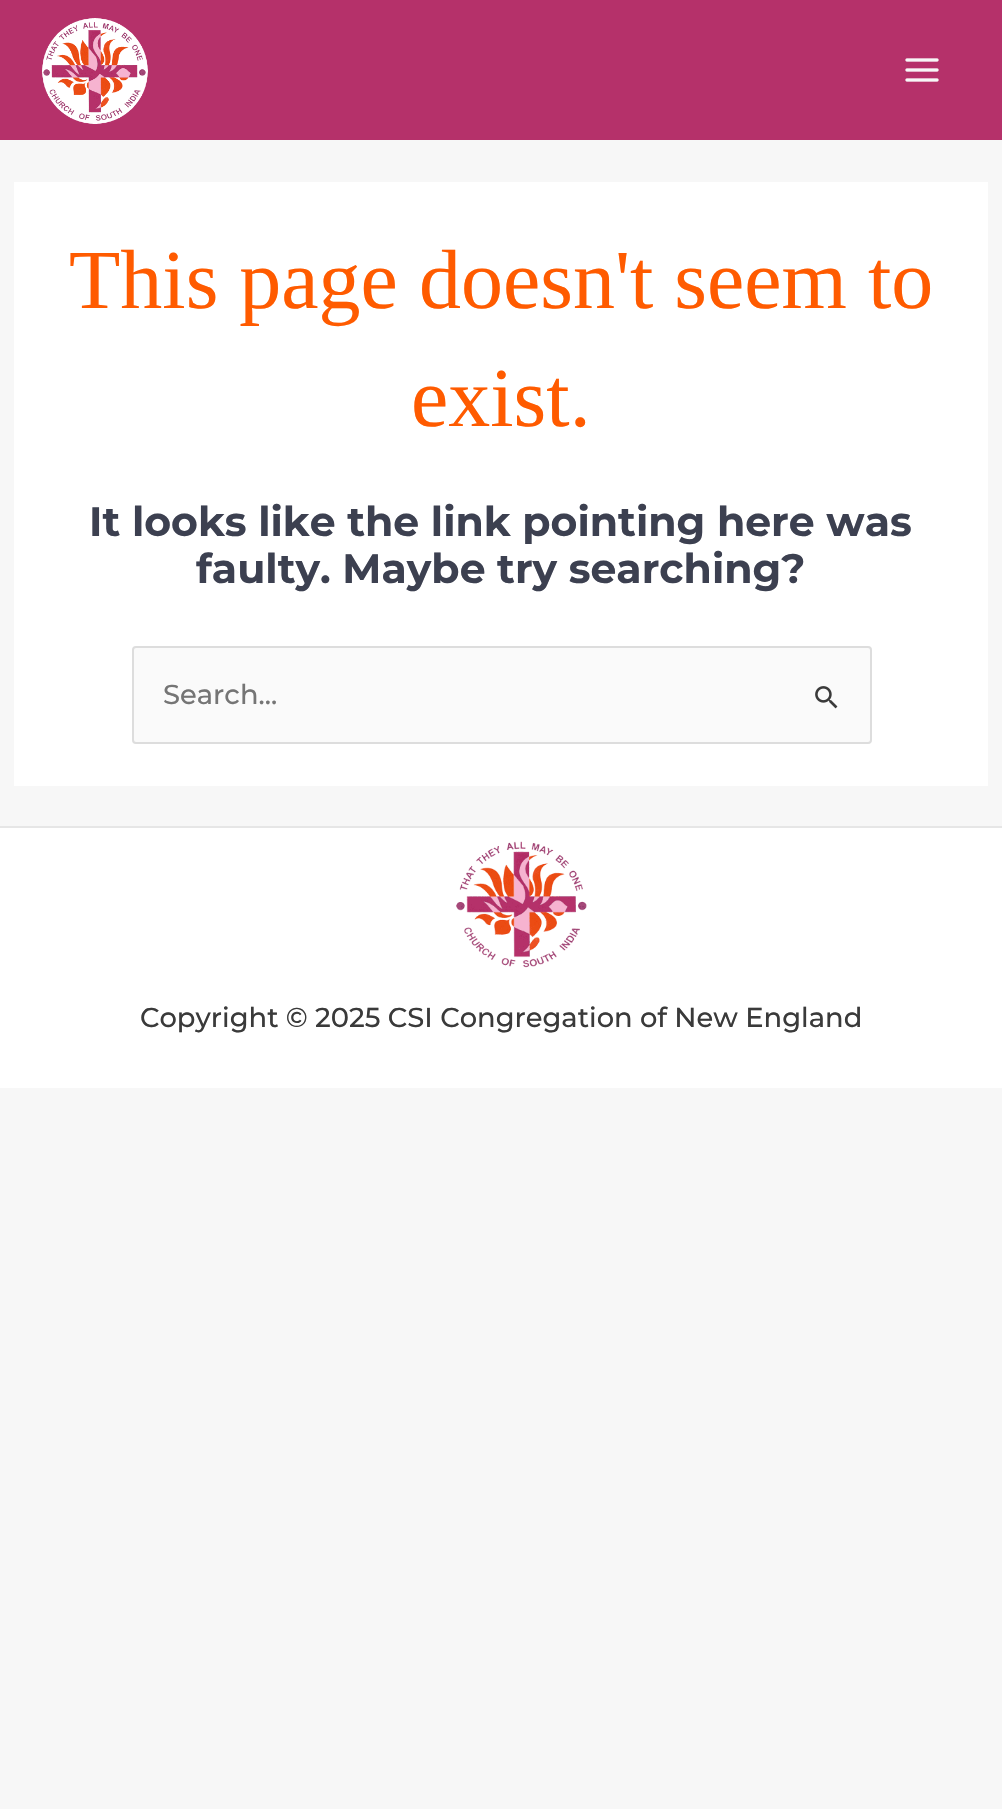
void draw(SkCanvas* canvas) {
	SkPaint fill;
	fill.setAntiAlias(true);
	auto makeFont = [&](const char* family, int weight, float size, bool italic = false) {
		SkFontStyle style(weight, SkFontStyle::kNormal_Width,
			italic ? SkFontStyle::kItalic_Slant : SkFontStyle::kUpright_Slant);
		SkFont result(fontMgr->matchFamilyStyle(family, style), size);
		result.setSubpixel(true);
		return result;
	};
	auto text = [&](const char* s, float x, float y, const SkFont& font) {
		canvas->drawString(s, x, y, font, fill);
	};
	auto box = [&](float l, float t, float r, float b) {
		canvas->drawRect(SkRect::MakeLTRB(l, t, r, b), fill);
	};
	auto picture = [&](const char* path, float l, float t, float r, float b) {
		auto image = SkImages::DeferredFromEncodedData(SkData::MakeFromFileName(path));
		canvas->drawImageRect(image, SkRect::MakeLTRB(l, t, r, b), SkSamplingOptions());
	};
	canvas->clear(0xFFF7F7F7);
	fill.setColor(0xFFB5316A);
	box(0, 0, 1002, 140);
	picture("image0.png", 42, 18, 148, 124);
	picture("image1.png", 905, 58, 939, 82);
	fill.setColor(0xFFFFFFFF);
	box(14, 182, 988, 786);
	fill.setColor(0xFFFAFAFA);
	canvas->drawRoundRect(SkRect::MakeLTRB(133, 647, 871, 743), 3, 3, fill);
	fill.setStyle(SkPaint::kStroke_Style);
	fill.setStrokeWidth(2);
	fill.setColor(0xFFDDDDDD);
	canvas->drawRoundRect(SkRect::MakeLTRB(133, 647, 871, 743), 3, 3, fill);
	picture("image2.png", 815, 686, 838, 709);
	fill.setStyle(SkPaint::kFill_Style);
	fill.setColor(0xFFFFFFFF);
	box(0, 828, 1002, 1088);
	fill.setColor(0xFFE6E6E6);
	box(0, 826, 1002, 828);
	picture("image3.png", 456, 841, 587, 968);
	auto font1 = makeFont("Liberation Serif", 400, 84);
	fill.setColor(0xFFFF5B00);
	text("This page doesn't seem to", 69, 308, font1);
	text("exist.", 411, 426, font1);
	auto font2 = makeFont("Montserrat", 700, 41);
	fill.setColor(0xFF3C4050);
	text("It looks like the link pointing here was", 89, 536, font2);
	text("faulty. Maybe try searching?", 196, 583, font2);
	auto font3 = makeFont("Montserrat", 500, 27.35f);
	fill.setColor(0xFF757575);
	text("Search...", 163, 704, font3);
	fill.setColor(0xFF3A3A3A);
	text("Copyright © 2025 CSI Congregation of New England", 140, 1027, font3);
}
